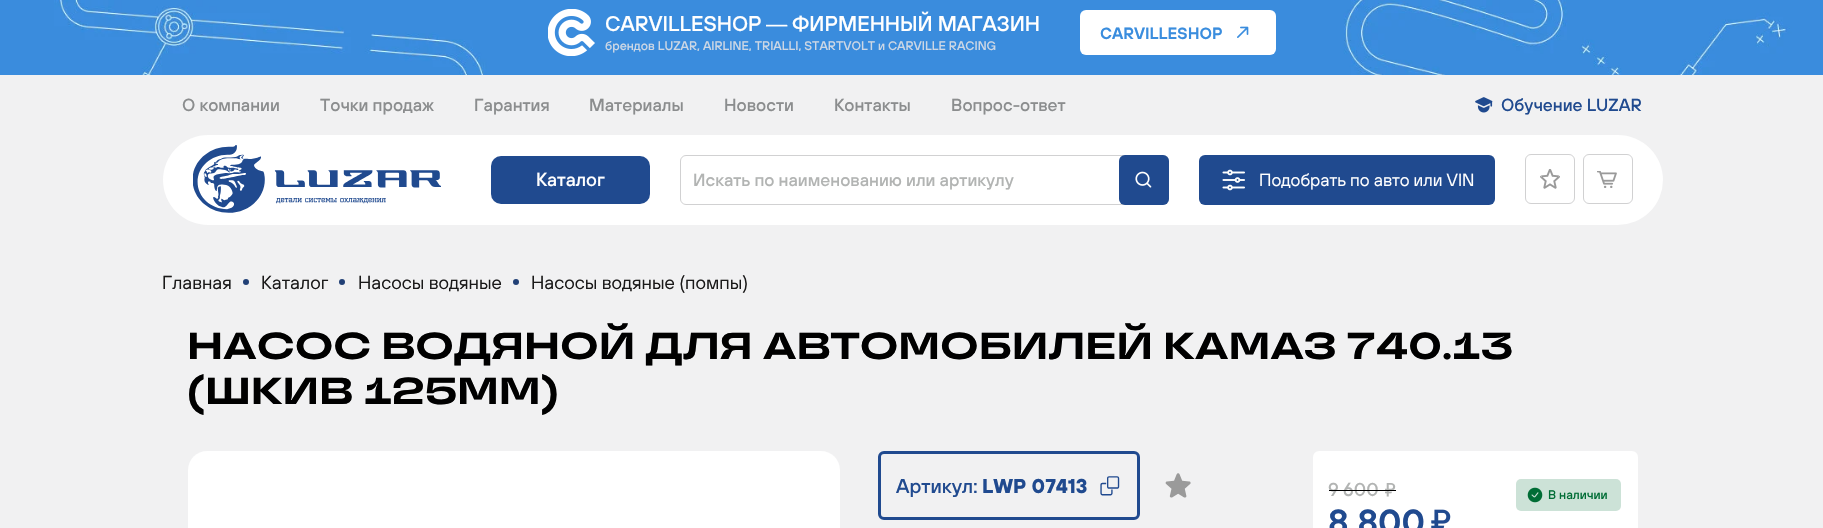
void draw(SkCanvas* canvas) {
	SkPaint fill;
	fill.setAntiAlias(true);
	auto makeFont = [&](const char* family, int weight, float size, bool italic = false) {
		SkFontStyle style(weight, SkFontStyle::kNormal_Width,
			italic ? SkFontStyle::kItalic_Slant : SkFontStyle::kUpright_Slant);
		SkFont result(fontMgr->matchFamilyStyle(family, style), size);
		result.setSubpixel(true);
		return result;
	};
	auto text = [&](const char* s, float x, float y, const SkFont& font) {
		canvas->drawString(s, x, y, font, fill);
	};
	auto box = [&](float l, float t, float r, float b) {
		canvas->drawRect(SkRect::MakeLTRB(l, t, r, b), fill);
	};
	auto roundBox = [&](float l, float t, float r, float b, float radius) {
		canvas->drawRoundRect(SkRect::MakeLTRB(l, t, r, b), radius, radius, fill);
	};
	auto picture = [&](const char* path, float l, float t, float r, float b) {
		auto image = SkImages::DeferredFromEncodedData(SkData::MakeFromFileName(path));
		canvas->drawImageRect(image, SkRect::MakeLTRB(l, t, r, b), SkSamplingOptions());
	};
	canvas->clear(0xFFF1F1F2);
	picture("image0.png", 0, 0, 1823, 75);
	picture("image1.png", 548, 9, 595, 56);
	fill.setColor(0xFFFFFFFF);
	roundBox(1080, 10, 1276, 55, 6);
	picture("image2.png", 1237, 26, 1249, 38);
	picture("image3.png", 1475, 97, 1493, 113);
	roundBox(163, 135, 1663, 225, 45);
	picture("image4.png", 193, 145, 441, 213);
	fill.setColor(0xFF204A8F);
	roundBox(491, 156, 650, 204, 10);
	fill.setStyle(SkPaint::kStroke_Style);
	fill.setStrokeWidth(1);
	fill.setColor(0xFFD1D1D2);
	canvas->drawRoundRect(SkRect::MakeLTRB(680.5f, 155.5f, 1168.5f, 204.5f), 5.5f, 5.5f, fill);
	fill.setStyle(SkPaint::kFill_Style);
	fill.setColor(0xFF204A8F);
	roundBox(1119, 155, 1169, 205, 6);
	picture("image5.png", 1135, 171, 1152, 188);
	roundBox(1199, 155, 1495, 205, 6);
	picture("image6.png", 1222, 169, 1245, 191);
	picture("image7.png", 1540, 169, 1560, 189);
	fill.setStyle(SkPaint::kStroke_Style);
	fill.setColor(0xFFD1D1D2);
	canvas->drawRoundRect(SkRect::MakeLTRB(1525.5f, 154.5f, 1574.5f, 203.5f), 5.5f, 5.5f, fill);
	picture("image8.png", 1597, 171, 1617, 188);
	canvas->drawRoundRect(SkRect::MakeLTRB(1583.5f, 154.5f, 1632.5f, 203.5f), 5.5f, 5.5f, fill);
	fill.setStyle(SkPaint::kFill_Style);
	fill.setColor(0xFF214076);
	canvas->drawCircle(246, 282, 3, fill);
	canvas->drawCircle(342, 282, 3, fill);
	canvas->drawCircle(516, 282, 3, fill);
	fill.setColor(0xFFFFFFFF);
	roundBox(188, 451, 840, 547, 19);
	fill.setStyle(SkPaint::kStroke_Style);
	fill.setStrokeWidth(3);
	fill.setColor(0xFF204A8F);
	canvas->drawRoundRect(SkRect::MakeLTRB(879.5f, 452.5f, 1138.5f, 518.5f), 4.5f, 4.5f, fill);
	picture("image9.png", 1100, 476, 1120, 496);
	picture("image10.png", 1165, 473, 1191, 498);
	fill.setStyle(SkPaint::kFill_Style);
	fill.setColor(0xFFFFFFFF);
	roundBox(1313, 451, 1638, 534, 6);
	picture("image11.png", 1385, 483, 1396, 497);
	picture("image12.png", 1431, 509, 1451, 528);
	fill.setColor(0xFFCCE2D7);
	roundBox(1516, 479, 1621, 511, 5);
	picture("image13.png", 1527, 487, 1543, 503);
	auto font1 = makeFont("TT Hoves", 500, 21.25f);
	fill.setColor(0xFFFFFFFF);
	text("CARVILLESHOP", 605, 31, font1);
	auto font2 = makeFont("Liberation Sans", 400, 21.25f);
	text("—", 766, 31, font2);
	text("ФИРМЕННЫЙ МАГАЗИН", 792, 31, font1);
	auto font3 = makeFont("TT Hoves", 500, 12.5f);
	fill.setColor(0xFFCCD7E5);
	text("брендов LUZAR, AIRLINE, TRIALLI, STARTVOLT и CARVILLE RACING", 605, 50, font3);
	auto font4 = makeFont("TT Hoves", 600, 16.25f);
	fill.setColor(0xFF3A8DDE);
	text("CARVILLESHOP", 1100, 39, font4);
	auto font5 = makeFont("TT Hoves", 500, 17.5f);
	fill.setColor(0xFF8B8D8E);
	text("О компании", 182, 111, font5);
	text("Точки продаж", 320, 111, font5);
	text("Гарантия", 474, 111, font5);
	text("Материалы", 589, 111, font5);
	text("Новости", 724, 111, font5);
	text("Контакты", 834, 111, font5);
	text("Вопрос-ответ", 951, 111, font5);
	fill.setColor(0xFF204A8F);
	text("Обучение LUZAR", 1501, 111, font5);
	auto font6 = makeFont("TT Hoves", 500, 18.75f);
	fill.setColor(0xFFFFFFFF);
	text("Каталог", 536, 186, font6);
	fill.setColor(0xFFB2B4B3);
	text("Искать по наименованию или артикулу", 693, 186, font5);
	auto font7 = makeFont("TT Hoves", 400, 17.5f);
	fill.setColor(0xFFFFFFFF);
	text("Подобрать по авто или VIN", 1259, 186, font7);
	auto font8 = makeFont("TT Hoves", 400, 18.75f);
	fill.setColor(0xFF1A1919);
	text("Главная", 162, 289, font8);
	text("Каталог", 261, 289, font8);
	text("Насосы водяные", 358, 289, font8);
	text("Насосы водяные (помпы)", 531, 289, font8);
	auto font9 = makeFont("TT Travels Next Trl", 700, 37.5f);
	fill.setColor(0xFF000000);
	text("НАСОС ВОДЯНОЙ ДЛЯ АВТОМОБИЛЕЙ КАМАЗ 740.13", 187, 359, font9);
	text("(ШКИВ 125ММ)", 187, 404, font9);
	auto font10 = makeFont("TT Hoves", 500, 20);
	fill.setColor(0xFF204A8F);
	text("Артикул:", 896, 493, font10);
	auto font11 = makeFont("TT Hoves", 700, 20);
	text("LWP 07413", 982, 493, font11);
	fill.setColor(0xFFB2B4B3);
	text("9 600", 1328, 496, font6);
	fill.setColor(0xFF000000);
	box(1329, 490, 1396, 491);
	auto font12 = makeFont("TT Hoves", 600, 35);
	fill.setColor(0xFF204A8F);
	text("8 800", 1328, 534, font12);
	fill.setColor(0xFF006D35);
	text("В наличии", 1548, 499, font3);
}
